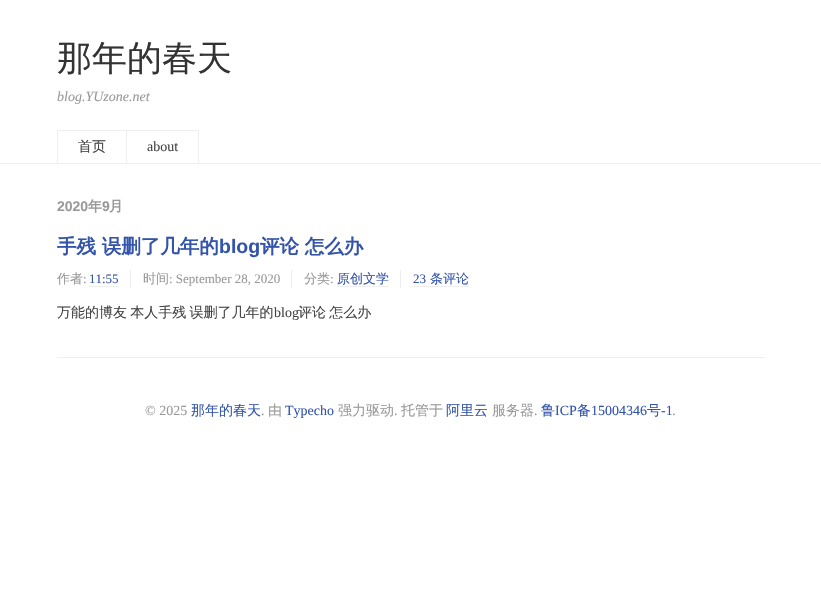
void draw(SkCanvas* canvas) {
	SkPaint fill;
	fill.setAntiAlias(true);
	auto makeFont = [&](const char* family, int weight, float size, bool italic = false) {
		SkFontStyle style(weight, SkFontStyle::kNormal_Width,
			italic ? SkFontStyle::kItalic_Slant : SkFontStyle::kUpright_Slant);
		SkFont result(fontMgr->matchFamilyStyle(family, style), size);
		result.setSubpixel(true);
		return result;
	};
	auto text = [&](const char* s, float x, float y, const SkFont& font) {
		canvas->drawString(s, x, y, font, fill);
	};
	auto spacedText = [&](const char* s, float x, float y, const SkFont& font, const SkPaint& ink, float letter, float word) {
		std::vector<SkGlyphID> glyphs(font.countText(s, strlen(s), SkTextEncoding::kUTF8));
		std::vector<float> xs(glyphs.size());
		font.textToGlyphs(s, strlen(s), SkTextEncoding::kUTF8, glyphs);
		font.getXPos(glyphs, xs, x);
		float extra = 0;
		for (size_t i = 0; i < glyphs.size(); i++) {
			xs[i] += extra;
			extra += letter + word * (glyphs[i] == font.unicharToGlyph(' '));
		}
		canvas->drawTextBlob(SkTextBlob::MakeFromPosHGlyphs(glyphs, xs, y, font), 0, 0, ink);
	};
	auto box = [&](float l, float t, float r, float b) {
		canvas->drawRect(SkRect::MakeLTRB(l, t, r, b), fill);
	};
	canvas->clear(0xFFFFFFFF);
	fill.setColor(0xFFEEEEEE);
	box(0, 163, 821, 164);
	box(57, 130, 127, 131);
	box(126, 130, 127, 163);
	box(57, 130, 58, 163);
	box(126, 130, 199, 131);
	box(198, 130, 199, 163);
	box(57, 357, 765, 358);
	box(89, 286, 119, 287);
	box(130, 270, 131, 288);
	box(291, 270, 292, 288);
	box(337, 286, 389, 287);
	box(400, 270, 401, 288);
	box(413, 286, 469, 287);
	auto font1 = makeFont("WenQuanYi Zen Hei", 500, 35);
	fill.setColor(0xFF333333);
	text("那年的春天", 57, 70, font1);
	auto font2 = makeFont("Liberation Serif", 400, 14, true);
	fill.setColor(0xFF999999);
	text("blog.YUzone.net", 57, 101, font2);
	auto font3 = makeFont("WenQuanYi Zen Hei", 500, 14);
	fill.setColor(0xFF444444);
	text("首页", 78, 151, font3);
	auto font4 = makeFont("Liberation Serif", 400, 14);
	text("about", 147, 151, font4);
	auto font5 = makeFont("Liberation Sans", 700, 14);
	fill.setColor(0xFF999999);
	text("2020", 57, 211, font5);
	auto font6 = makeFont("WenQuanYi Zen Hei", 700, 14);
	text("年", 88, 211, font6);
	text("9", 102, 211, font5);
	text("月", 109, 211, font6);
	auto font7 = makeFont("WenQuanYi Zen Hei", 700, 19.5f);
	fill.setColor(0xFF3354AA);
	text("手残 误删了几年的", 57, 253, font7);
	auto font8 = makeFont("Liberation Sans", 700, 19.5f);
	text("blog", 219, 253, font8);
	text("评论 怎么办", 260, 253, font7);
	auto font9 = makeFont("WenQuanYi Zen Hei", 500, 13);
	fill.setColor(0xFF999999);
	text("作者", 57, 283, font9);
	auto font10 = makeFont("Liberation Serif", 400, 13);
	text(":", 83, 283, font10);
	fill.setColor(0xFF3354AA);
	text("11:55", 89, 283, font10);
	fill.setColor(0xFF999999);
	text("时间", 143, 283, font9);
	text(": September 28, 2020", 169, 283, font10);
	text("分类", 304, 283, font9);
	text(":", 330, 283, font10);
	fill.setColor(0xFF3354AA);
	text("原创文学", 337, 283, font9);
	text("23", 413, 283, font10);
	text("条评论", 430, 283, font9);
	fill.setColor(0xFF444444);
	spacedText("万能的博友 本人手残 误删了几年的", 57, 317, font3, fill, 0, -1);
	text("blog", 274, 317, font4);
	spacedText("评论 怎么办", 298, 317, font3, fill, 0, -1);
	fill.setColor(0xFF999999);
	text("© 2025", 145, 415, font4);
	fill.setColor(0xFF3354AA);
	text("那年的春天", 191, 415, font3);
	fill.setColor(0xFF999999);
	text(".", 261, 415, font4);
	text("由", 268, 415, font3);
	fill.setColor(0xFF3354AA);
	text("Typecho", 285, 415, font4);
	fill.setColor(0xFF999999);
	text("强力驱动", 338, 415, font3);
	text(".", 394, 415, font4);
	text("托管于", 401, 415, font3);
	fill.setColor(0xFF3354AA);
	text("阿里云", 446, 415, font3);
	fill.setColor(0xFF999999);
	text("服务器", 492, 415, font3);
	text(".", 534, 415, font4);
	fill.setColor(0xFF3354AA);
	text("鲁", 541, 415, font3);
	text("ICP", 555, 415, font4);
	text("备", 577, 415, font3);
	text("15004346", 591, 415, font4);
	text("号", 647, 415, font3);
	text("-1", 661, 415, font4);
	fill.setColor(0xFF999999);
	text(".", 672, 415, font4);
}
